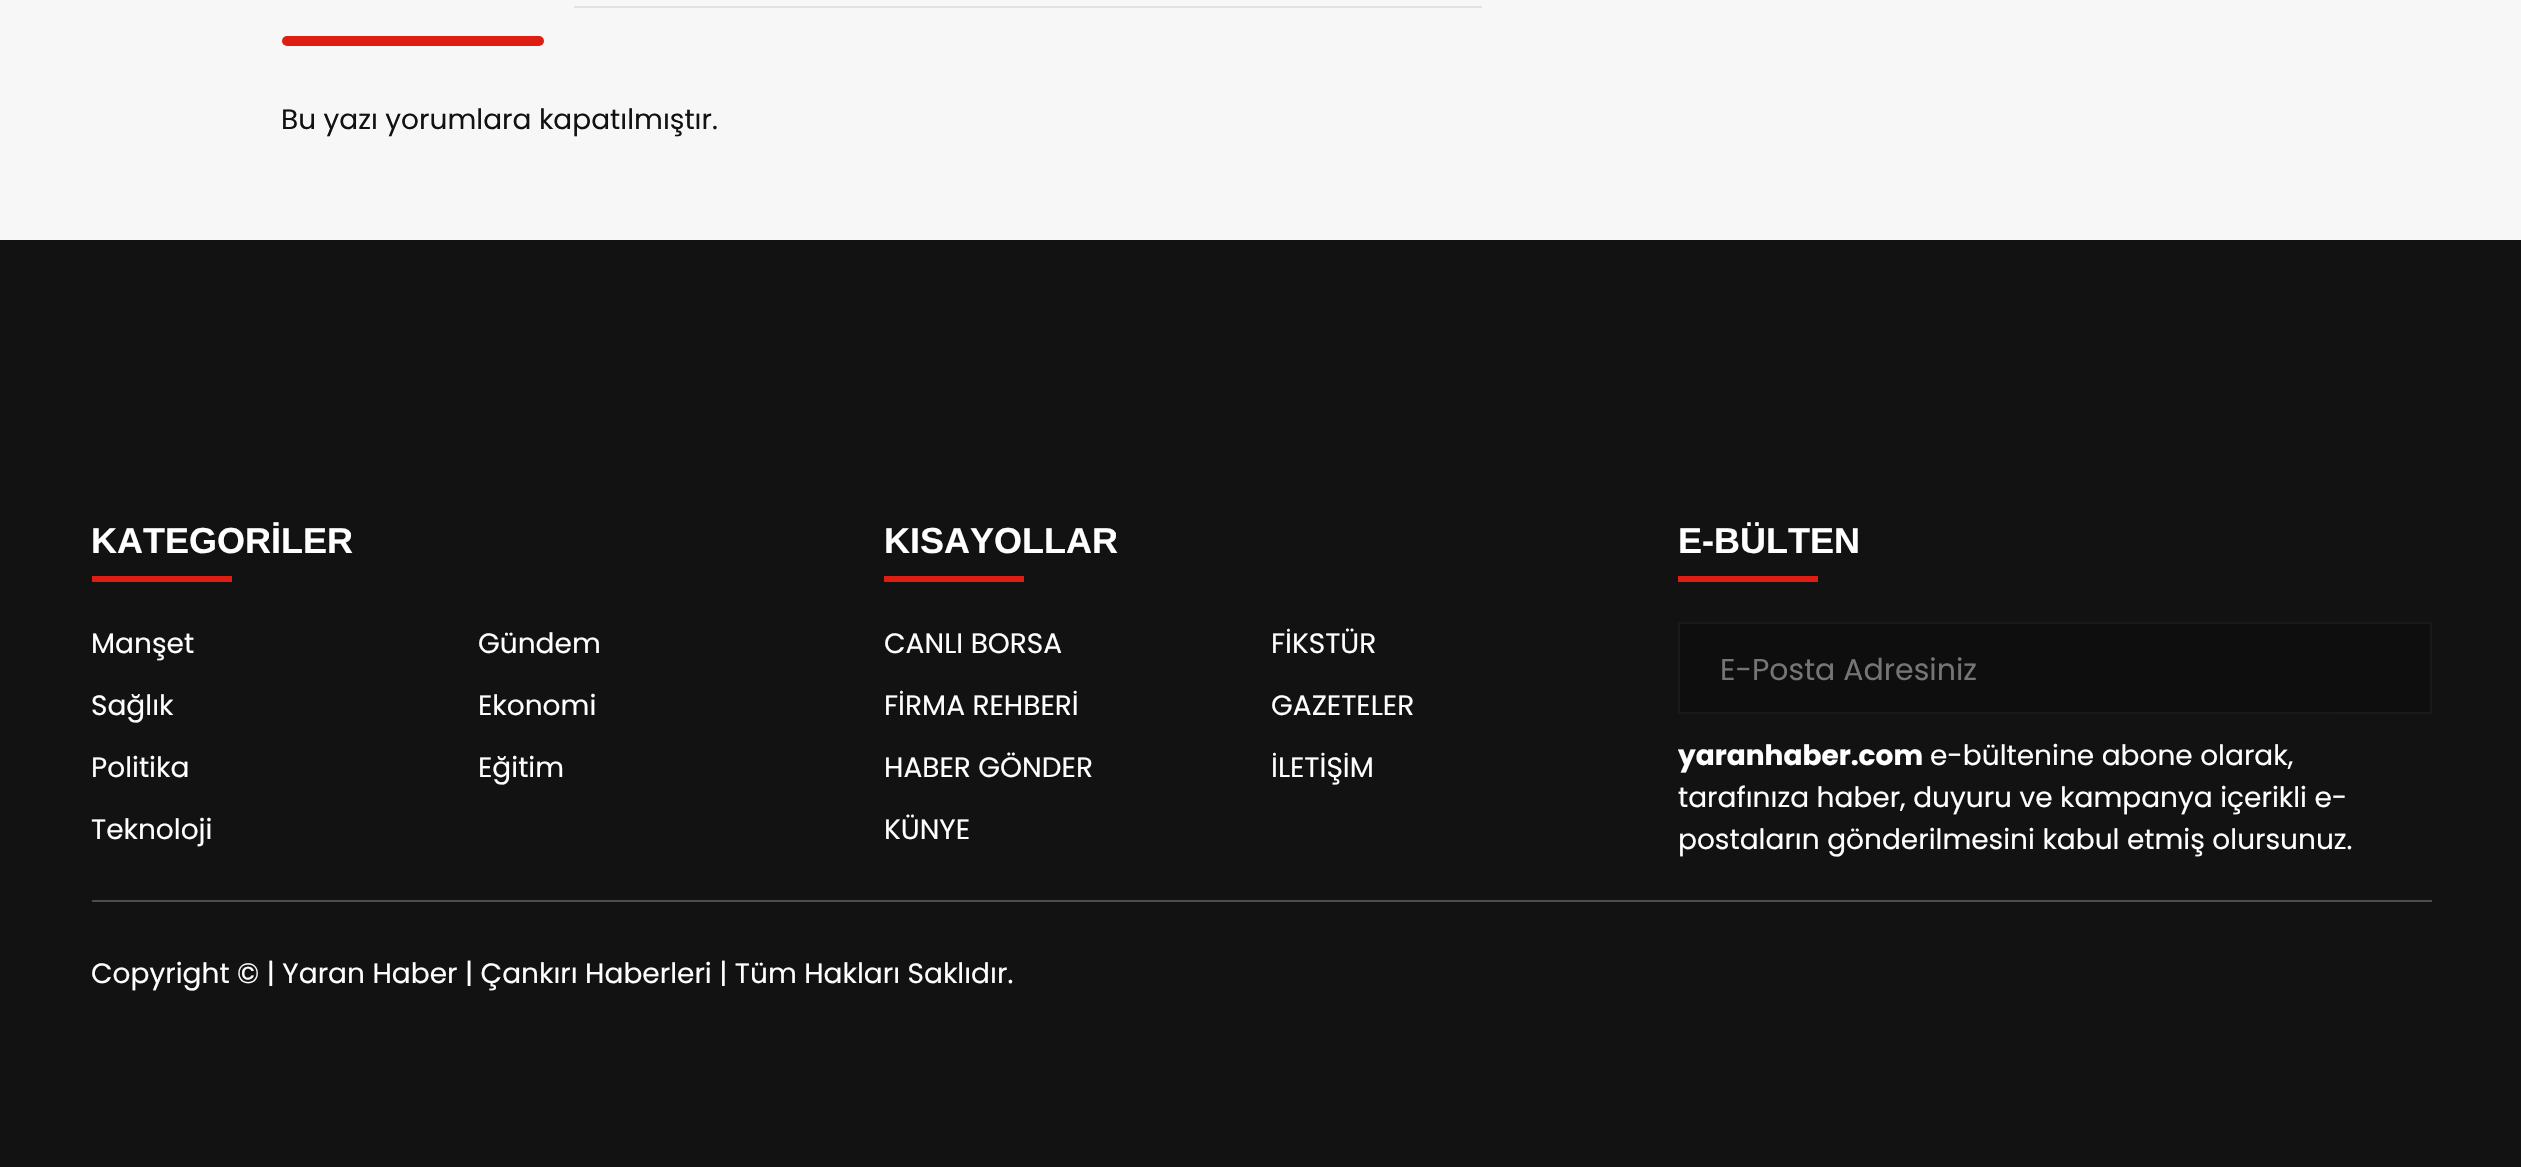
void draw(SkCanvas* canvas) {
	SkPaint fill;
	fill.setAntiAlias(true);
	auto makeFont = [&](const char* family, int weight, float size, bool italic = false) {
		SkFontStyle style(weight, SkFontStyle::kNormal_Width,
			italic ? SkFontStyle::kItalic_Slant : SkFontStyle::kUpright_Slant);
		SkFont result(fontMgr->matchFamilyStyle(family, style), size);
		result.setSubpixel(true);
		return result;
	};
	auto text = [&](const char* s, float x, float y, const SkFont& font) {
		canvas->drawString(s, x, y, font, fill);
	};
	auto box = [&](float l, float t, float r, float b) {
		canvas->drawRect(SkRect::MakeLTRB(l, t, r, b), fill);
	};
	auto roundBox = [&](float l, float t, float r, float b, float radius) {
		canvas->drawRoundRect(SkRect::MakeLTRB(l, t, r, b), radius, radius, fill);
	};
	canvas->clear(0xFFF7F7F7);
	fill.setColor(0xFFE1E1E1);
	box(574, 6, 1482, 8);
	fill.setColor(0xFFDE1E12);
	roundBox(282, 36, 544, 46, 5);
	fill.setColor(0xFF121212);
	box(0, 240, 2521, 1167);
	fill.setColor(0xFFDE1E12);
	box(92, 576, 232, 582);
	box(884, 576, 1024, 582);
	box(1678, 576, 1818, 582);
	fill.setColor(0xFF0E0E0E);
	box(1678, 622, 2432, 714);
	fill.setColor(0xFF1A1A1A);
	canvas->drawPath(SkPathBuilder().moveTo(2340, 622).lineTo(2432, 622).lineTo(2430, 624).lineTo(2340, 624).close().detach(), fill);
	fill.setColor(0x0DFFFFFF);
	canvas->drawPath(SkPathBuilder().moveTo(2432, 622).lineTo(2432, 714).lineTo(2430, 712).lineTo(2430, 624).close().detach(), fill);
	canvas->drawPath(SkPathBuilder().moveTo(2432, 714).lineTo(2340, 714).lineTo(2340, 712).lineTo(2430, 712).close().detach(), fill);
	fill.setColor(0xFF1A1A1A);
	canvas->drawPath(SkPathBuilder().moveTo(1678, 622).lineTo(2340, 622).lineTo(2340, 624).lineTo(1680, 624).close().detach(), fill);
	canvas->drawPath(SkPathBuilder().moveTo(2340, 714).lineTo(1678, 714).lineTo(1680, 712).lineTo(2340, 712).close().detach(), fill);
	fill.setColor(0x0DFFFFFF);
	canvas->drawPath(SkPathBuilder().moveTo(1678, 714).lineTo(1678, 622).lineTo(1680, 624).lineTo(1680, 712).close().detach(), fill);
	fill.setColor(0xFF4D4D4D);
	box(92, 900, 2432, 902);
	auto font1 = makeFont("Poppins", 400, 28);
	fill.setColor(0xFF121212);
	text("Bu yazı yorumlara kapatılmıştır.", 281, 129, font1);
	auto font2 = makeFont("Liberation Sans", 700, 36);
	fill.setColor(0xFFFFFFFF);
	text("KATEGORİLER", 91, 553, font2);
	text("Manşet", 91, 653, font1);
	text("Gündem", 478, 653, font1);
	text("Sağlık", 91, 715, font1);
	text("Ekonomi", 478, 715, font1);
	text("Politika", 91, 777, font1);
	text("Eğitim", 478, 777, font1);
	text("Teknoloji", 91, 839, font1);
	text("KISAYOLLAR", 884, 553, font2);
	text("CANLI BORSA", 884, 653, font1);
	text("FİKSTÜR", 1271, 653, font1);
	text("FİRMA REHBERİ", 884, 715, font1);
	text("GAZETELER", 1271, 715, font1);
	text("HABER GÖNDER", 884, 777, font1);
	text("İLETİŞİM", 1271, 777, font1);
	text("KÜNYE", 884, 839, font1);
	text("E-BÜLTEN", 1678, 553, font2);
	auto font3 = makeFont("Poppins", 400, 30);
	fill.setColor(0xFF757575);
	text("E-Posta Adresiniz", 1720, 680, font3);
	auto font4 = makeFont("Poppins", 700, 28);
	fill.setColor(0xFFFFFFFF);
	text("yaranhaber.com", 1678, 765, font4);
	text("e-bültenine abone olarak,", 1930, 765, font1);
	text("tarafınıza haber, duyuru ve kampanya içerikli e-", 1678, 807, font1);
	text("postaların gönderilmesini kabul etmiş olursunuz.", 1678, 849, font1);
	text("Copyright © | Yaran Haber | Çankırı Haberleri | Tüm Hakları Saklıdır.", 91, 983, font1);
}
